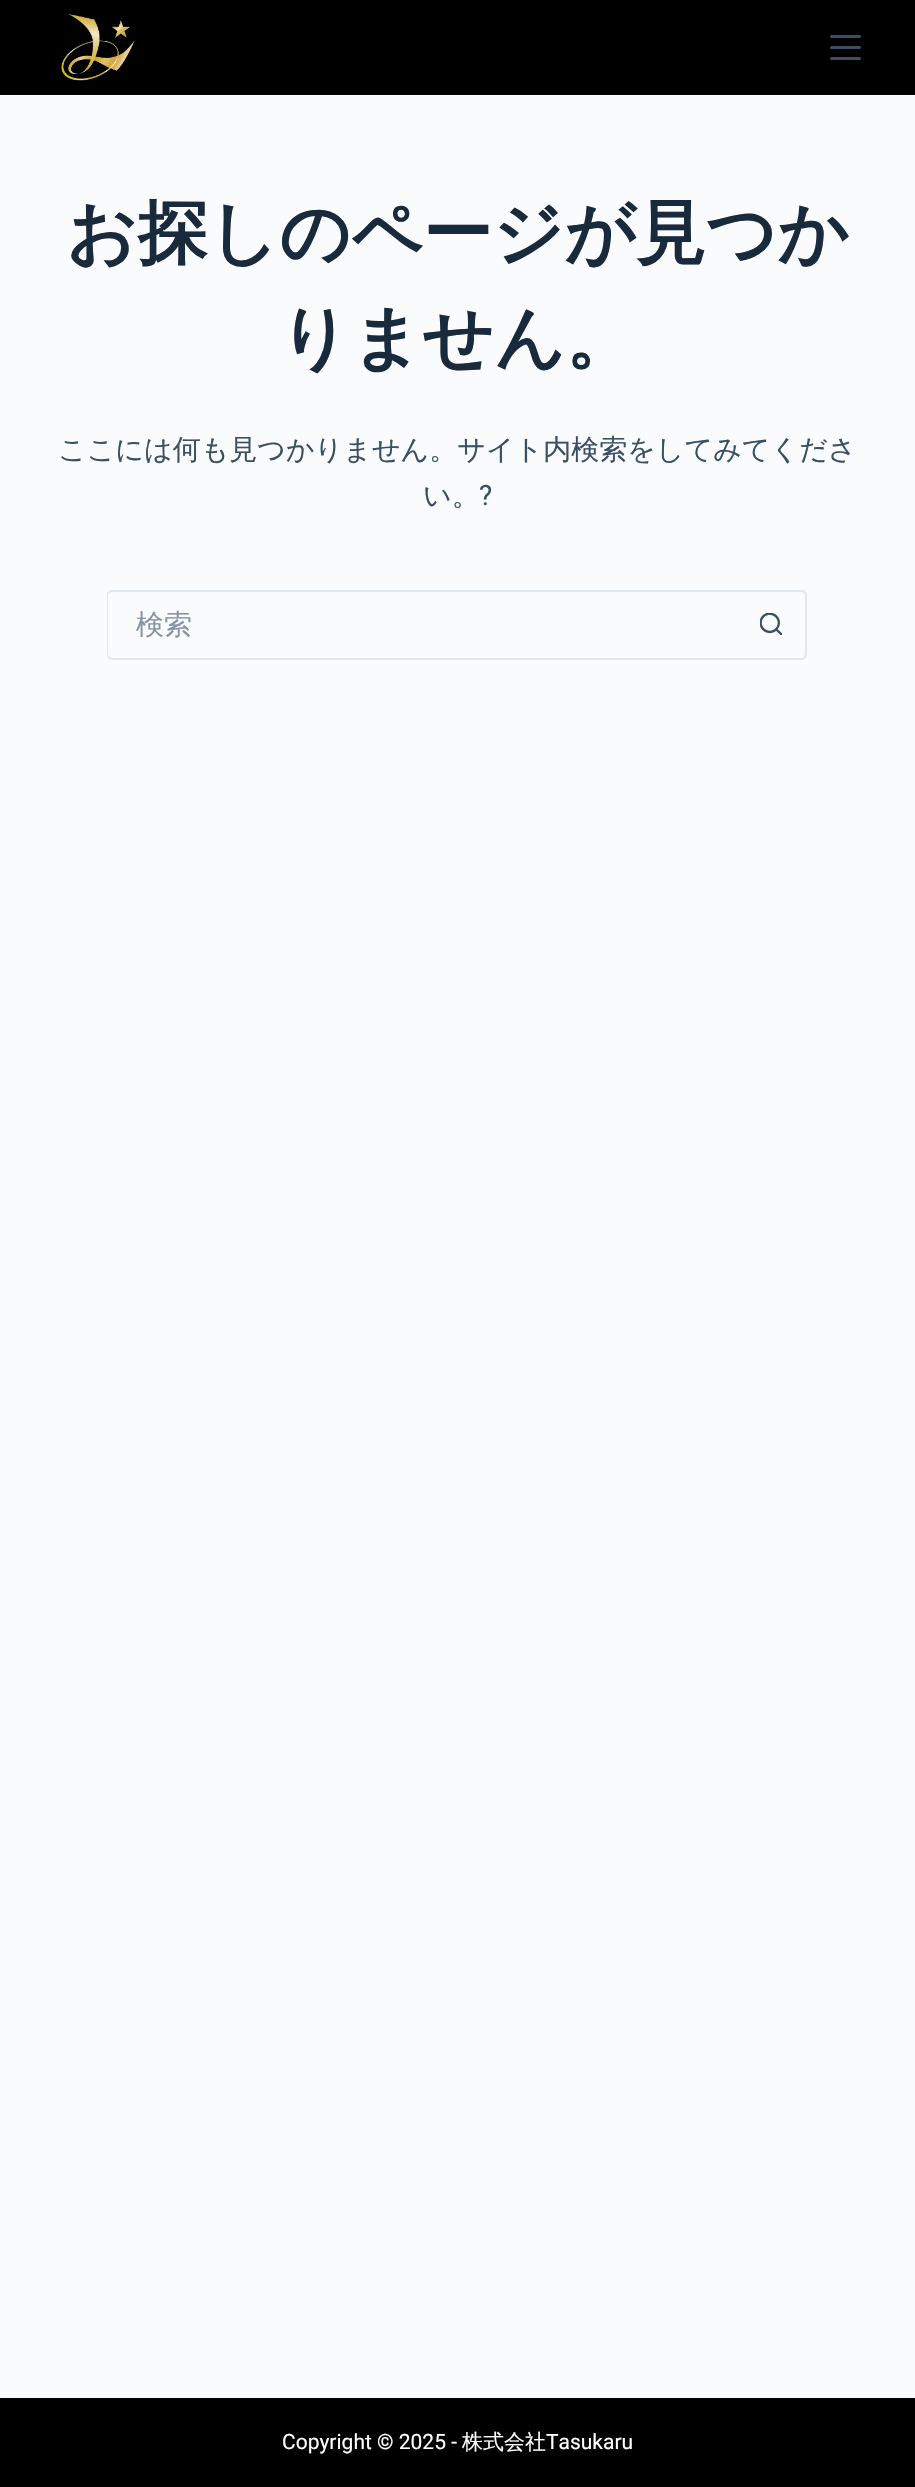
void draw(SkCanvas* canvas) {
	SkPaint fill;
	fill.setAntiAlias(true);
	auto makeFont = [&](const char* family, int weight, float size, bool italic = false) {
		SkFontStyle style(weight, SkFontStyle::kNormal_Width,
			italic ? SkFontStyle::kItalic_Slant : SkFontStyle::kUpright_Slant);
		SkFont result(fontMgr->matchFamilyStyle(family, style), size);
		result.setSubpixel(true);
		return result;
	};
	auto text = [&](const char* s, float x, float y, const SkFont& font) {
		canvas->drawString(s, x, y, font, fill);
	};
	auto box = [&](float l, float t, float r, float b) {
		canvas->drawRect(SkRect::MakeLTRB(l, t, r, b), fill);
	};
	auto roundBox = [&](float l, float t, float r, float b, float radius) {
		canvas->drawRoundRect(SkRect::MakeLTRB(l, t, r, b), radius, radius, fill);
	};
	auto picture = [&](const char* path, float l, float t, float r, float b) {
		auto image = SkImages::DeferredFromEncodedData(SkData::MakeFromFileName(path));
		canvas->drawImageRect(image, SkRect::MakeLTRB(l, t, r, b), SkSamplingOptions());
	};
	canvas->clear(0xFFFAFBFC);
	fill.setColor(0xFF000000);
	box(0, 0, 915, 95);
	picture("image0.png", 61, 14, 135, 81);
	fill.setColor(0xFF3A4F66);
	roundBox(830, 35, 861, 38, 1.5f);
	roundBox(830, 46, 861, 49, 1.5f);
	roundBox(830, 57, 861, 60, 1.5f);
	fill.setColor(0xFFE1E8ED);
	canvas->drawPath(SkPathBuilder(SkPathFillType::kEvenOdd).moveTo(112, 590).lineTo(737, 590).lineTo(737, 660).lineTo(112, 660).cubicTo(109, 660, 107, 657, 107, 654).lineTo(107, 595).cubicTo(107, 592, 109, 590, 112, 590).close().moveTo(112, 592).lineTo(737, 592).lineTo(737, 658).lineTo(112, 658).cubicTo(110, 658, 108, 656, 108, 654).lineTo(108, 595).cubicTo(108, 593, 110, 592, 112, 592).close().detach(), fill);
	canvas->drawPath(SkPathBuilder(SkPathFillType::kEvenOdd).moveTo(737, 590).lineTo(802, 590).cubicTo(804, 590, 807, 592, 807, 595).lineTo(807, 654).cubicTo(807, 657, 804, 660, 802, 660).lineTo(737, 660).close().moveTo(737, 592).lineTo(802, 592).cubicTo(803, 592, 805, 593, 805, 595).lineTo(805, 654).cubicTo(805, 656, 803, 658, 802, 658).lineTo(737, 658).close().detach(), fill);
	picture("image1.png", 760, 613, 782, 635);
	fill.setColor(0xFF000000);
	box(0, 2398, 915, 2487);
	auto font1 = makeFont("WenQuanYi Zen Hei", 700, 70);
	fill.setColor(0xFF192A3D);
	text("お探しのページが見つか", 66, 257, font1);
	text("りません。", 279, 362, font1);
	auto font2 = makeFont("WenQuanYi Zen Hei", 500, 28);
	fill.setColor(0xFF3A4F66);
	text("ここには何も見つかりません。サイト内検索をしてみてくださ", 58, 459, font2);
	text("い。", 423, 505, font2);
	auto font3 = makeFont("Roboto", 400, 28);
	text("?", 479, 505, font3);
	fill.setColor(0xFF8794A2);
	text("検索", 136, 634, font2);
	auto font4 = makeFont("Roboto", 400, 21);
	fill.setColor(0xFFFFFFFF);
	text("Copyright © 2025 -", 282, 2449, font4);
	auto font5 = makeFont("WenQuanYi Zen Hei", 500, 21);
	text("株式会社", 462, 2449, font5);
	text("Tasukaru", 546, 2449, font4);
}
